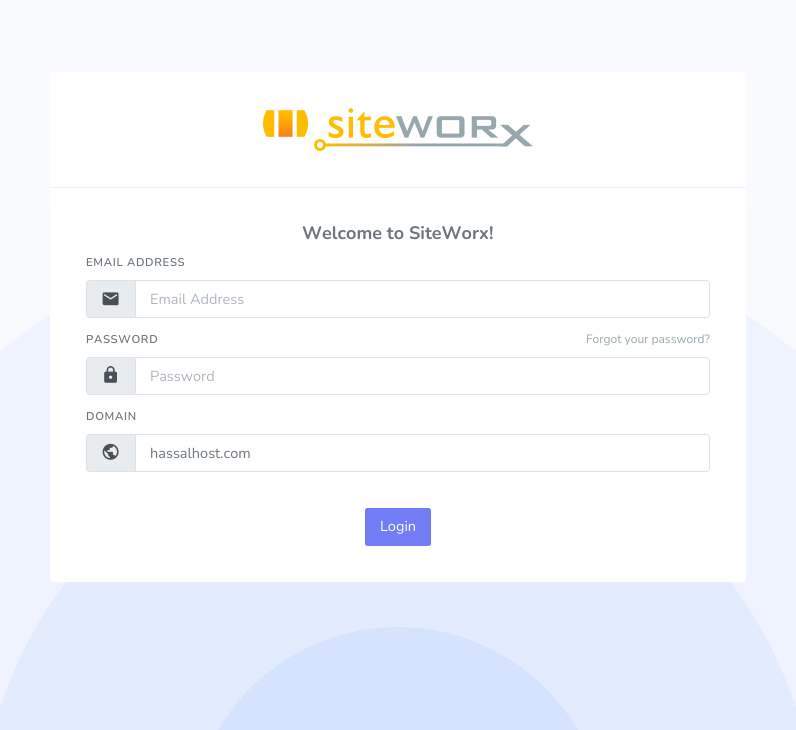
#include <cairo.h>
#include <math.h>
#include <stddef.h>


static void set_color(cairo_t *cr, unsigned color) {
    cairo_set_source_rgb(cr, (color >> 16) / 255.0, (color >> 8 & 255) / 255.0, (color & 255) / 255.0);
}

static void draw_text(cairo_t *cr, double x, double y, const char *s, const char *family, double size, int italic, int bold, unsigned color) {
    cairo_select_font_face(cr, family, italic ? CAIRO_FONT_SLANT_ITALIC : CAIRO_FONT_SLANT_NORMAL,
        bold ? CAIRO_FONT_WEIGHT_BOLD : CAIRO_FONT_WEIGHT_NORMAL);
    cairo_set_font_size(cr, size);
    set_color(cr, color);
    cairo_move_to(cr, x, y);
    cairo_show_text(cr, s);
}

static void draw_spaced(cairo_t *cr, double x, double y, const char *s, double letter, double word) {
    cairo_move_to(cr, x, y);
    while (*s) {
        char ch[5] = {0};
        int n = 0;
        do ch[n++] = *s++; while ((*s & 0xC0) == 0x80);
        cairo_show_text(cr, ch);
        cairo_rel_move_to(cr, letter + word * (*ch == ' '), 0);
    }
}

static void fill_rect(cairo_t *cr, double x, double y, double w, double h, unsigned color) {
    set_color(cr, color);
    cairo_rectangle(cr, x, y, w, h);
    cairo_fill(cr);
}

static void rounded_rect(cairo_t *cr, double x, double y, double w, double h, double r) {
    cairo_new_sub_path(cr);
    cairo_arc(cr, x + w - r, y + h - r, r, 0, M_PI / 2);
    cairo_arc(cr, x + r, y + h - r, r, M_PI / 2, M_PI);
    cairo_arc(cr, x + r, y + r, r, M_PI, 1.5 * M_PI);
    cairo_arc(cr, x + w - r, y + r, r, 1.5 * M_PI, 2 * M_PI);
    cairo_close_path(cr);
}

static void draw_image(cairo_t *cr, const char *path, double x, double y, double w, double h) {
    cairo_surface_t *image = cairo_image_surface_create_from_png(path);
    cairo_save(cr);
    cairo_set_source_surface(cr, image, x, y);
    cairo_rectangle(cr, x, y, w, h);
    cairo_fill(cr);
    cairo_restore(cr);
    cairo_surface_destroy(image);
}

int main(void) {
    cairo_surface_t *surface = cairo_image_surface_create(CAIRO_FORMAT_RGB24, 796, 730);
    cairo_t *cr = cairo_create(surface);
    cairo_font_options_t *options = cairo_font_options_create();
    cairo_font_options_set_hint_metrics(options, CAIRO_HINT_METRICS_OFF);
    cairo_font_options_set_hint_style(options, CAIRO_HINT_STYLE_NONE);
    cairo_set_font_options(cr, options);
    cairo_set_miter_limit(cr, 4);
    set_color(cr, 0xFAFBFE);
    cairo_paint(cr);
    draw_image(cr, "assets/img1.png", 0, 209, 796, 521);
    set_color(cr, 0xFFFFFF);
    rounded_rect(cr, 50, 72, 696, 510, 4);
    cairo_fill(cr);
    fill_rect(cr, 50, 187, 696, 1, 0xEEF2F7);
    draw_image(cr, "assets/img2.png", 263, 108, 270, 43);
    draw_text(cr, 302, 239, "Welcome to SiteWorx!", "Nunito", 18, 0, 1, 0x6C757D);
    cairo_select_font_face(cr, "Nunito SemiBold", CAIRO_FONT_SLANT_NORMAL, CAIRO_FONT_WEIGHT_NORMAL);
    cairo_set_font_size(cr, 11.25);
    draw_spaced(cr, 86, 266, "EMAIL ADDRESS", 0.7, 0);
    set_color(cr, 0xE9ECEF);
    cairo_new_path(cr);
    cairo_move_to(cr, 90, 280.5);
    cairo_line_to(cr, 135.5, 280.5);
    cairo_line_to(cr, 135.5, 317.5);
    cairo_line_to(cr, 90, 317.5);
    cairo_curve_to(cr, 88, 317.5, 86.5, 316, 86.5, 314);
    cairo_line_to(cr, 86.5, 284);
    cairo_curve_to(cr, 86.5, 282, 88, 280.5, 90, 280.5);
    cairo_close_path(cr);
    cairo_fill_preserve(cr);
    set_color(cr, 0xDEE2E6);
    cairo_set_line_width(cr, 1);
    cairo_stroke(cr);
    draw_image(cr, "assets/img3.png", 102, 292, 17, 14);
    cairo_new_path(cr);
    cairo_move_to(cr, 135.5, 280.5);
    cairo_line_to(cr, 706, 280.5);
    cairo_curve_to(cr, 708, 280.5, 709.5, 282, 709.5, 284);
    cairo_line_to(cr, 709.5, 314);
    cairo_curve_to(cr, 709.5, 316, 708, 317.5, 706, 317.5);
    cairo_line_to(cr, 135.5, 317.5);
    cairo_close_path(cr);
    cairo_stroke(cr);
    draw_text(cr, 150, 304, "Email Address", "Nunito", 14.5, 0, 0, 0xADB5BD);
    cairo_select_font_face(cr, "Nunito SemiBold", CAIRO_FONT_SLANT_NORMAL, CAIRO_FONT_WEIGHT_NORMAL);
    cairo_set_font_size(cr, 11.25);
    set_color(cr, 0x6C757D);
    draw_spaced(cr, 86, 343, "PASSWORD", 0.7, 0);
    draw_text(cr, 586, 343, "Forgot your password?", "Nunito", 12, 0, 0, 0x98A6AD);
    set_color(cr, 0xE9ECEF);
    cairo_new_path(cr);
    cairo_move_to(cr, 90, 357.5);
    cairo_line_to(cr, 135.5, 357.5);
    cairo_line_to(cr, 135.5, 394.5);
    cairo_line_to(cr, 90, 394.5);
    cairo_curve_to(cr, 88, 394.5, 86.5, 393, 86.5, 391);
    cairo_line_to(cr, 86.5, 361);
    cairo_curve_to(cr, 86.5, 359, 88, 357.5, 90, 357.5);
    cairo_close_path(cr);
    cairo_fill_preserve(cr);
    set_color(cr, 0xDEE2E6);
    cairo_stroke(cr);
    draw_image(cr, "assets/img4.png", 104, 366, 13, 17);
    cairo_new_path(cr);
    cairo_move_to(cr, 135.5, 357.5);
    cairo_line_to(cr, 706, 357.5);
    cairo_curve_to(cr, 708, 357.5, 709.5, 359, 709.5, 361);
    cairo_line_to(cr, 709.5, 391);
    cairo_curve_to(cr, 709.5, 393, 708, 394.5, 706, 394.5);
    cairo_line_to(cr, 135.5, 394.5);
    cairo_close_path(cr);
    cairo_stroke(cr);
    draw_text(cr, 150, 381, "Password", "Nunito", 14.5, 0, 0, 0xADB5BD);
    cairo_select_font_face(cr, "Nunito SemiBold", CAIRO_FONT_SLANT_NORMAL, CAIRO_FONT_WEIGHT_NORMAL);
    cairo_set_font_size(cr, 11.25);
    set_color(cr, 0x6C757D);
    draw_spaced(cr, 86, 420, "DOMAIN", 0.7, 0);
    set_color(cr, 0xE9ECEF);
    cairo_new_path(cr);
    cairo_move_to(cr, 90, 434.5);
    cairo_line_to(cr, 135.5, 434.5);
    cairo_line_to(cr, 135.5, 471.5);
    cairo_line_to(cr, 90, 471.5);
    cairo_curve_to(cr, 88, 471.5, 86.5, 470, 86.5, 468);
    cairo_line_to(cr, 86.5, 438);
    cairo_curve_to(cr, 86.5, 436, 88, 434.5, 90, 434.5);
    cairo_close_path(cr);
    cairo_fill_preserve(cr);
    set_color(cr, 0xDEE2E6);
    cairo_stroke(cr);
    draw_image(cr, "assets/img5.png", 102, 443, 17, 17);
    cairo_new_path(cr);
    cairo_move_to(cr, 135.5, 434.5);
    cairo_line_to(cr, 706, 434.5);
    cairo_curve_to(cr, 708, 434.5, 709.5, 436, 709.5, 438);
    cairo_line_to(cr, 709.5, 468);
    cairo_curve_to(cr, 709.5, 470, 708, 471.5, 706, 471.5);
    cairo_line_to(cr, 135.5, 471.5);
    cairo_close_path(cr);
    cairo_stroke(cr);
    draw_text(cr, 150, 458, "hassalhost.com", "Nunito", 14.5, 0, 0, 0x6C757D);
    set_color(cr, 0x727CF5);
    rounded_rect(cr, 365.5, 508.5, 65, 37, 2);
    cairo_fill_preserve(cr);
    cairo_stroke(cr);
    draw_text(cr, 380, 531, "Login", "Nunito", 14.5, 0, 0, 0xFFFFFF);
    cairo_surface_write_to_png(surface, "output.png");
    cairo_font_options_destroy(options);
    cairo_destroy(cr);
    cairo_surface_destroy(surface);
    return 0;
}
